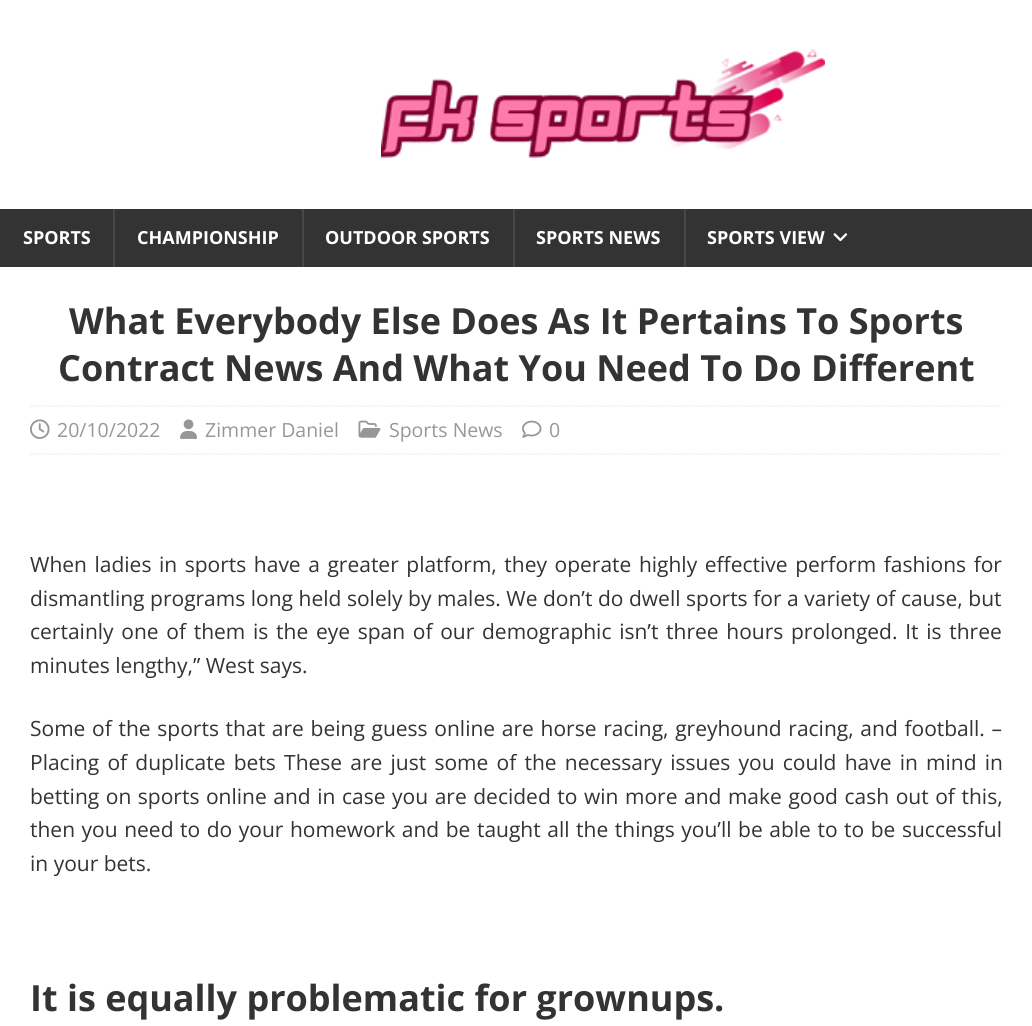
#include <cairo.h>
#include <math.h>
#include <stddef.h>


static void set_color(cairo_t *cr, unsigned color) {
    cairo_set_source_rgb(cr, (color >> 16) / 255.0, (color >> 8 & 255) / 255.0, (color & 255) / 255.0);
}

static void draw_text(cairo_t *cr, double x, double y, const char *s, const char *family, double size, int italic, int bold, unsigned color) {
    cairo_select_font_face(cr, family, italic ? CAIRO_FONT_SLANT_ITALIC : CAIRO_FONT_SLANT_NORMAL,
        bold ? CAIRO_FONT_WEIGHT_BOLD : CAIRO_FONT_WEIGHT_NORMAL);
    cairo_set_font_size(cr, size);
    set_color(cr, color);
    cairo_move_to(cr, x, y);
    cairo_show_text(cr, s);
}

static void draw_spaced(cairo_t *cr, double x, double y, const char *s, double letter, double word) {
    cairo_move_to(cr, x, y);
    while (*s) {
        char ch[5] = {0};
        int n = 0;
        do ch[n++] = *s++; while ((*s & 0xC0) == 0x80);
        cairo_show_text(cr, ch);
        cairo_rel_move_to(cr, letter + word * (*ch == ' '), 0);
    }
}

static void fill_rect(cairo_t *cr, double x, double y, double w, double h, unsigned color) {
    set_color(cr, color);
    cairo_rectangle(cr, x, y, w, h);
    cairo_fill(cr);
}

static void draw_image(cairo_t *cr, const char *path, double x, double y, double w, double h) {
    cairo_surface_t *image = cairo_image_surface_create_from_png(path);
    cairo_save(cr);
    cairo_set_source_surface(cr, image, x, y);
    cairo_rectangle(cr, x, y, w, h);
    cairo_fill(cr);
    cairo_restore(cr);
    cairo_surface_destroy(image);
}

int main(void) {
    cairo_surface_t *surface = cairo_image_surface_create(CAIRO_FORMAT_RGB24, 1032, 1026);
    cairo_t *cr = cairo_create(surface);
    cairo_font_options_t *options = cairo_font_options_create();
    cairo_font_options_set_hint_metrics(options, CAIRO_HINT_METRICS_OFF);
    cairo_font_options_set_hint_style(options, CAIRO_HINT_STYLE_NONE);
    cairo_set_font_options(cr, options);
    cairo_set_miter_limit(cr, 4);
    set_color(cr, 0xFFFFFF);
    cairo_paint(cr);
    draw_image(cr, "assets/img1.png", 381, 49, 444, 109);
    fill_rect(cr, 0, 209, 1032, 58, 0x333333);
    draw_text(cr, 23, 244, "SPORTS", "Open Sans", 18, 0, 1, 0xFFFFFF);
    fill_rect(cr, 113, 209, 2, 58, 0x474747);
    draw_text(cr, 137, 244, "CHAMPIONSHIP", "Open Sans", 18, 0, 1, 0xFFFFFF);
    fill_rect(cr, 302, 209, 2, 58, 0x474747);
    draw_text(cr, 325, 244, "OUTDOOR SPORTS", "Open Sans", 18, 0, 1, 0xFFFFFF);
    fill_rect(cr, 513, 209, 2, 58, 0x474747);
    draw_text(cr, 536, 244, "SPORTS NEWS", "Open Sans", 18, 0, 1, 0xFFFFFF);
    fill_rect(cr, 684, 209, 2, 58, 0x474747);
    draw_text(cr, 707, 244, "SPORTS VIEW", "Open Sans", 18, 0, 1, 0xFFFFFF);
    draw_image(cr, "assets/img2.png", 833, 233, 15, 9);
    draw_text(cr, 69, 334, "What Everybody Else Does As It Pertains To Sports", "Open Sans", 36, 0, 1, 0x333333);
    draw_text(cr, 58, 381, "Contract News And What You Need To Do Different", "Open Sans", 36, 0, 1, 0x333333);
    cairo_new_path(cr);
    cairo_move_to(cr, 30, 406);
    cairo_line_to(cr, 1002, 406);
    set_color(cr, 0xEBEBEB);
    cairo_set_line_width(cr, 1.5);
    cairo_set_dash(cr, (double[]){1.5, 1.5}, 2, 0);
    cairo_stroke(cr);
    cairo_new_path(cr);
    cairo_move_to(cr, 30, 454);
    cairo_line_to(cr, 1002, 454);
    cairo_stroke(cr);
    draw_image(cr, "assets/img3.png", 30, 419, 20, 20);
    draw_text(cr, 57, 437, "20/10/2022", "Open Sans", 19.5, 0, 0, 0x979797);
    draw_image(cr, "assets/img4.png", 180, 419, 17, 20);
    draw_text(cr, 205, 437, "Zimmer Daniel", "Open Sans", 19.5, 0, 0, 0x979797);
    draw_image(cr, "assets/img5.png", 358, 420, 23, 18);
    draw_text(cr, 389, 437, "Sports News", "Open Sans", 19.5, 0, 0, 0x979797);
    draw_image(cr, "assets/img6.png", 522, 420, 20, 18);
    draw_text(cr, 549, 437, "0", "Open Sans", 19.5, 0, 0, 0x979797);
    cairo_set_font_size(cr, 21);
    set_color(cr, 0x333333);
    draw_spaced(cr, 30, 572, "When ladies in sports have a greater platform, they operate highly effective perform fashions for", 0, 2.1);
    draw_spaced(cr, 30, 606, "dismantling programs long held solely by males. We don’t do dwell sports for a variety of cause, but", 0, 0.1);
    draw_spaced(cr, 30, 639, "certainly one of them is the eye span of our demographic isn’t three hours prolonged. It is three", 0, 2.25);
    draw_text(cr, 30, 673, "minutes lengthy,” West says.", "Open Sans", 21, 0, 0, 0x333333);
    draw_spaced(cr, 30, 736, "Some of the sports that are being guess online are horse racing, greyhound racing, and football. –", 0, 1.25);
    draw_spaced(cr, 30, 770, "Placing of duplicate bets These are just some of the necessary issues you could have in mind in", 0, 2.75);
    draw_spaced(cr, 30, 804, "betting on sports online and in case you are decided to win more and make good cash out of this,", 0, 1.1);
    draw_spaced(cr, 30, 837, "then you need to do your homework and be taught all the things you’ll be able to to be successful", 0, 1.1);
    draw_text(cr, 30, 871, "in your bets.", "Open Sans", 21, 0, 0, 0x333333);
    draw_text(cr, 30, 1011, "It is equally problematic for grownups.", "Open Sans", 36, 0, 1, 0x333333);
    cairo_surface_write_to_png(surface, "output.png");
    cairo_font_options_destroy(options);
    cairo_destroy(cr);
    cairo_surface_destroy(surface);
    return 0;
}
